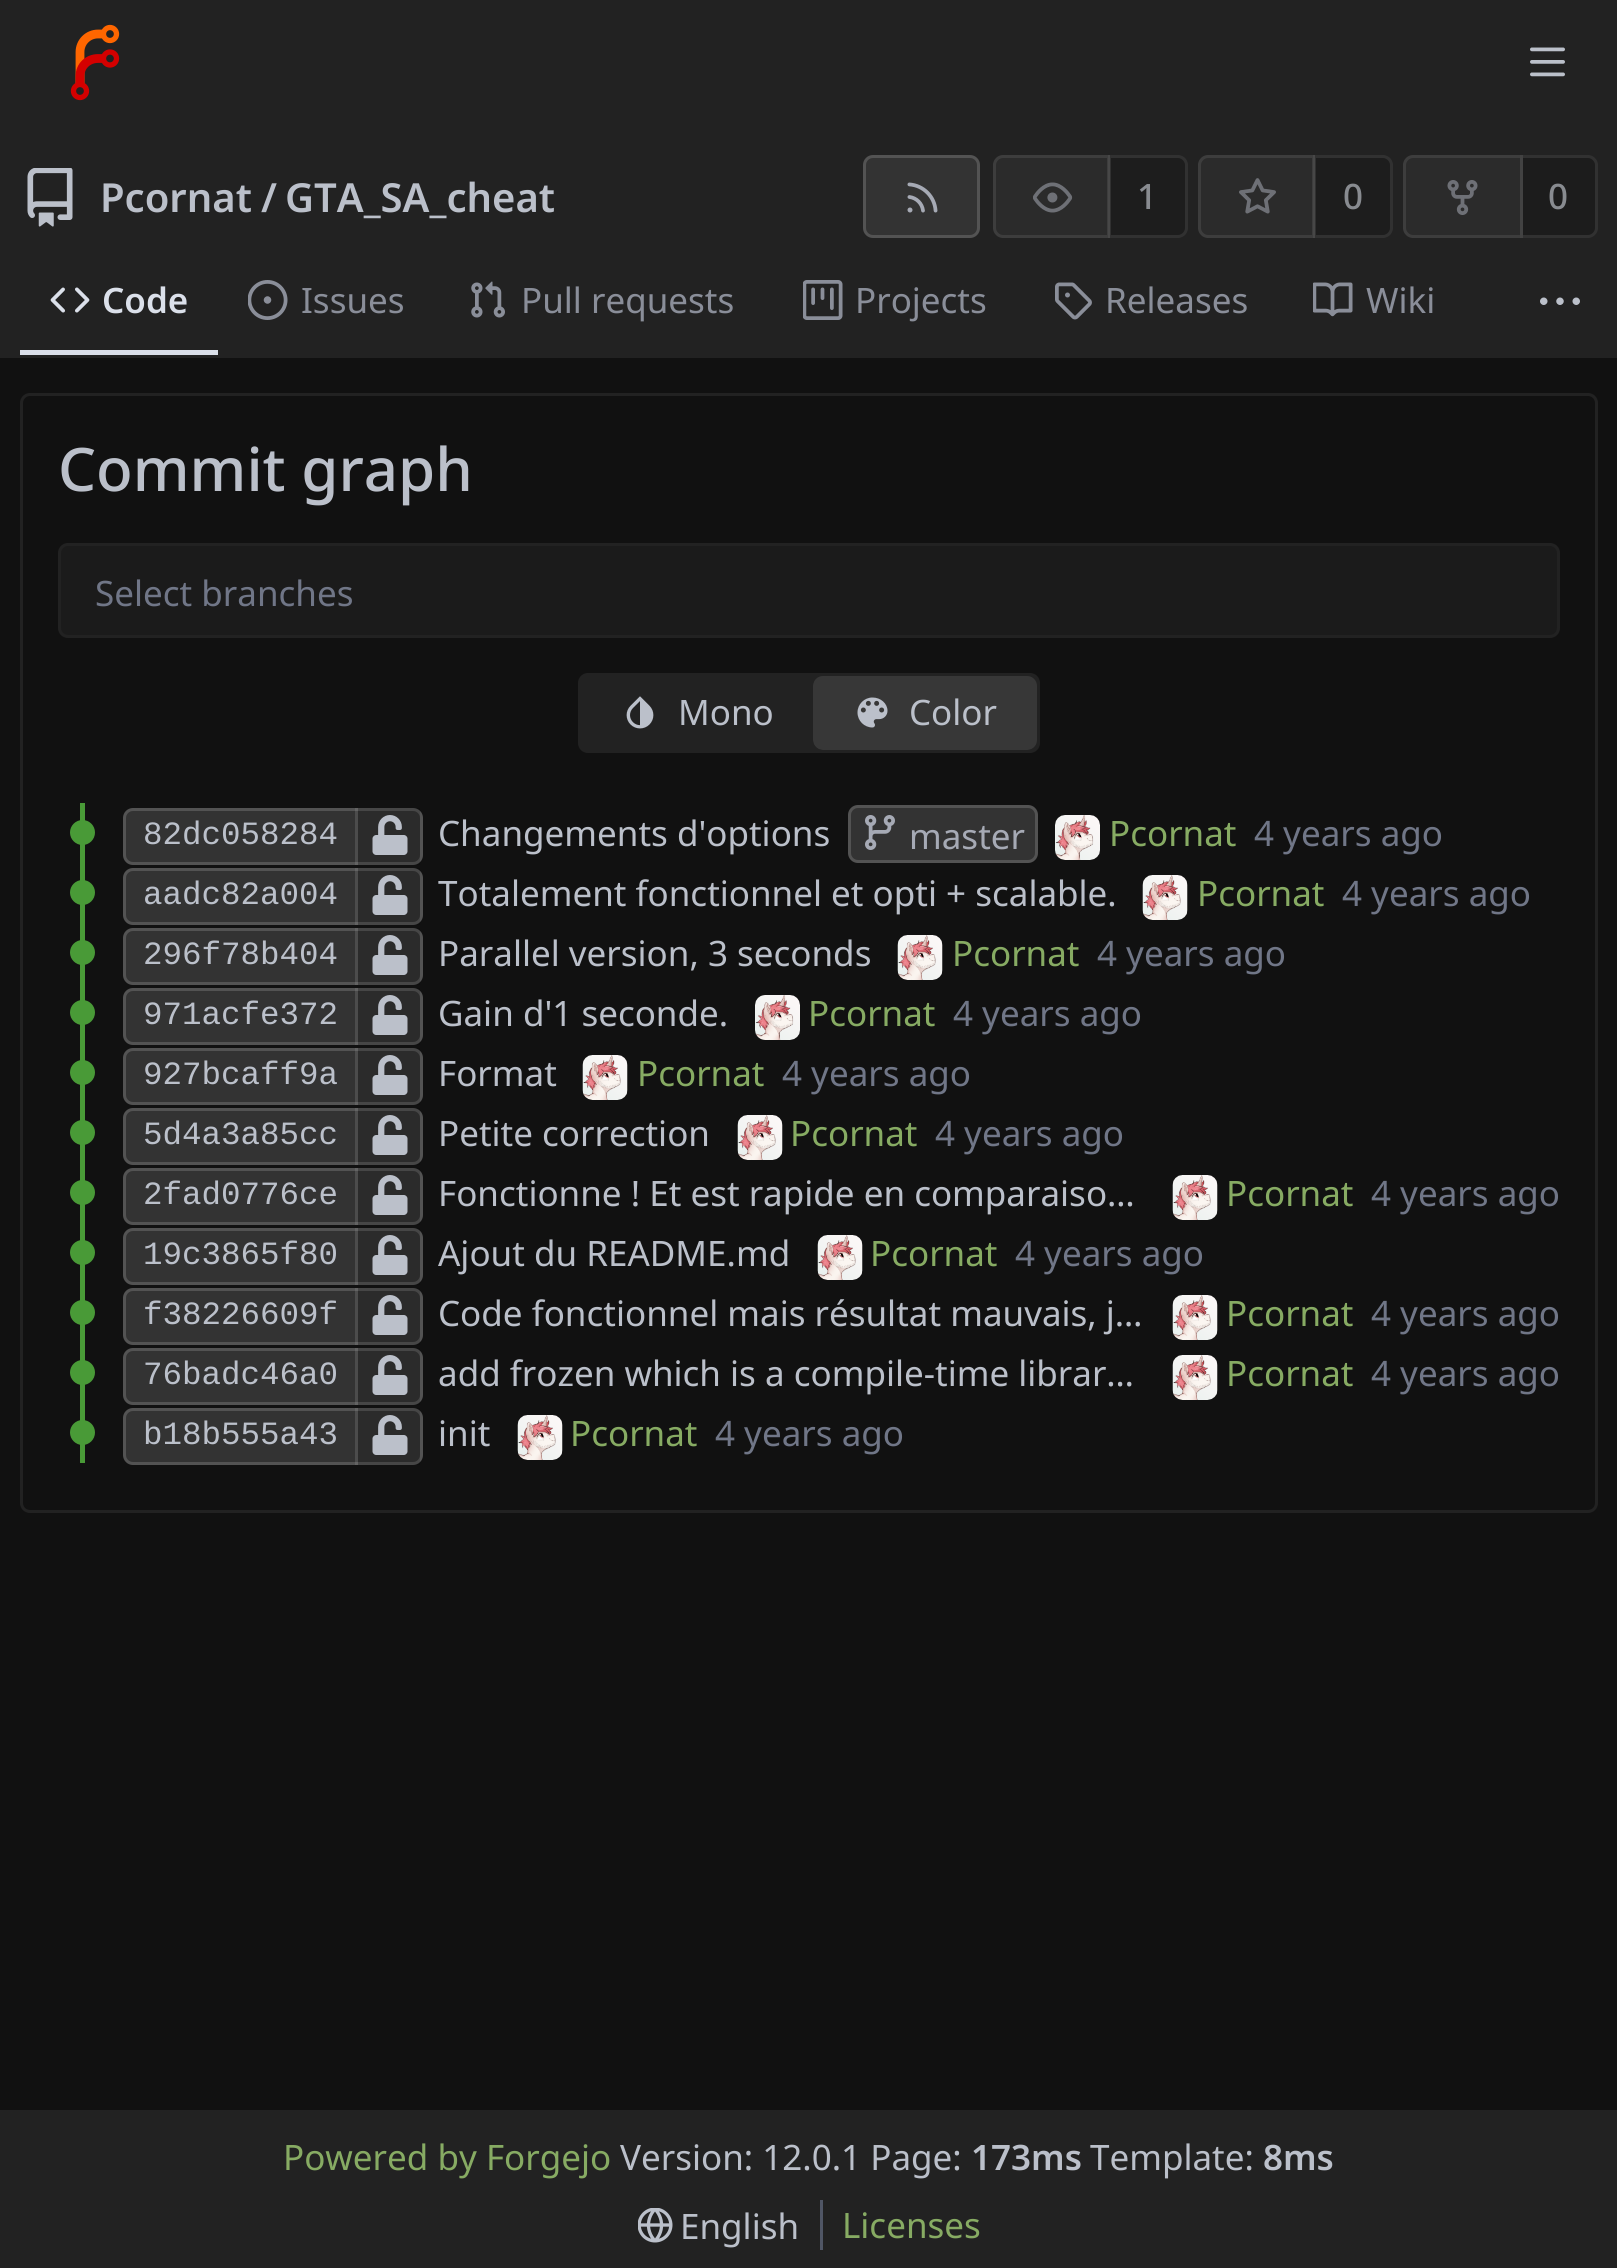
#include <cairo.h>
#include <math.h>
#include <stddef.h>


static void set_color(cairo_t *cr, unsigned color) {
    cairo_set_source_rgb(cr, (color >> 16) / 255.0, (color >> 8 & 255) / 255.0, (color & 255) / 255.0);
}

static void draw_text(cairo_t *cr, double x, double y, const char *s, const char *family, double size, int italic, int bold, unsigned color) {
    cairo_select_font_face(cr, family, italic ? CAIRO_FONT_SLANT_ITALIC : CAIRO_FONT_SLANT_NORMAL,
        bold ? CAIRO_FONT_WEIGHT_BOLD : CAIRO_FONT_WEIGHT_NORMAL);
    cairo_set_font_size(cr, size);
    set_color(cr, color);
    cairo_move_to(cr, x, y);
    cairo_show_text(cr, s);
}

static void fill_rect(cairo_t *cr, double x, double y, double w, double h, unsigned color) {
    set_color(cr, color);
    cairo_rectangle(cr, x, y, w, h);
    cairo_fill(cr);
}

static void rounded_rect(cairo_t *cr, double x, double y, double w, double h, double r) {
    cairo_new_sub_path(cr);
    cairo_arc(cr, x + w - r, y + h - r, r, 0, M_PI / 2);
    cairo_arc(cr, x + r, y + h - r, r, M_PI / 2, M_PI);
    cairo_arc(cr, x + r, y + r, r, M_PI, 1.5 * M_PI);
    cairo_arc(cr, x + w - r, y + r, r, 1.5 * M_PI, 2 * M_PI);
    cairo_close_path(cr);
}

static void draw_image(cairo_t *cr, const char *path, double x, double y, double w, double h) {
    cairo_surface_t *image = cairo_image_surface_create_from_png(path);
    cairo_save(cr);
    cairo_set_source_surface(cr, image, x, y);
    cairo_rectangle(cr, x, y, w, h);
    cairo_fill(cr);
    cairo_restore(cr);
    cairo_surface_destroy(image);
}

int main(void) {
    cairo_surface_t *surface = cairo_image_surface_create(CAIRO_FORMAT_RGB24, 1617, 2268);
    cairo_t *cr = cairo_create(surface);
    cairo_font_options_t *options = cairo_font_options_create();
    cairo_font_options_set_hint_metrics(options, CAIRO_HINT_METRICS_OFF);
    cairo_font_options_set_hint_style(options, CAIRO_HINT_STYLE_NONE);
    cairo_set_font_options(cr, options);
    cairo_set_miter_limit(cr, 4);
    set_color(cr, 0x111111);
    cairo_paint(cr);
    fill_rect(cr, 0, 0, 1617, 358, 0x222222);
    cairo_new_path(cr);
    cairo_move_to(cr, 80, 86.5);
    cairo_line_to(cr, 80, 52);
    cairo_curve_to(cr, 80, 42, 88, 34, 98, 34);
    cairo_line_to(cr, 105, 34);
    set_color(cr, 0xFF6600);
    cairo_set_line_width(cr, 8.8);
    cairo_stroke(cr);
    cairo_new_path(cr);
    cairo_move_to(cr, 80, 86.5);
    cairo_line_to(cr, 80, 76);
    cairo_curve_to(cr, 80, 66, 88, 58.5, 98, 58.5);
    cairo_line_to(cr, 105, 58.5);
    set_color(cr, 0xD40000);
    cairo_stroke(cr);
    cairo_arc(cr, 110, 34, 6.5, 0, 2 * M_PI);
    set_color(cr, 0xFF6600);
    cairo_set_line_width(cr, 5.3);
    cairo_stroke(cr);
    cairo_arc(cr, 110, 58.5, 6.5, 0, 2 * M_PI);
    set_color(cr, 0xD40000);
    cairo_stroke(cr);
    cairo_arc(cr, 80, 91, 6.5, 0, 2 * M_PI);
    cairo_stroke(cr);
    draw_image(cr, "assets/img1.png", 1530, 47, 35, 30);
    draw_image(cr, "assets/img2.png", 27, 168, 46, 59);
    draw_text(cr, 100, 212, "Pcornat", "Noto Sans SemiBold", 40, 0, 0, 0xBBC0CA);
    draw_text(cr, 261, 212, "/", "Noto Sans SemiBold", 40, 0, 0, 0xBBC0CA);
    draw_text(cr, 285, 212, "GTA_SA_cheat", "Noto Sans SemiBold", 40, 0, 0, 0xBBC0CA);
    set_color(cr, 0x333333);
    rounded_rect(cr, 863, 155, 117, 83, 10);
    cairo_fill(cr);
    rounded_rect(cr, 864.5, 156.5, 114, 80, 8.5);
    cairo_set_source_rgba(cr, 1, 1, 1, 0.16);
    cairo_set_line_width(cr, 3);
    cairo_stroke(cr);
    draw_image(cr, "assets/img3.png", 907, 182, 31, 31);
    set_color(cr, 0x2B2B2B);
    cairo_new_path(cr);
    cairo_move_to(cr, 1003, 155);
    cairo_line_to(cr, 1110, 155);
    cairo_line_to(cr, 1110, 238);
    cairo_line_to(cr, 1003, 238);
    cairo_curve_to(cr, 997.5, 238, 993, 233.5, 993, 228);
    cairo_line_to(cr, 993, 165);
    cairo_curve_to(cr, 993, 159.5, 997.5, 155, 1003, 155);
    cairo_close_path(cr);
    cairo_fill(cr);
    cairo_new_path(cr);
    cairo_move_to(cr, 1003, 156.5);
    cairo_line_to(cr, 1108.5, 156.5);
    cairo_line_to(cr, 1108.5, 236.5);
    cairo_line_to(cr, 1003, 236.5);
    cairo_curve_to(cr, 998.5, 236.5, 994.5, 232.5, 994.5, 228);
    cairo_line_to(cr, 994.5, 165);
    cairo_curve_to(cr, 994.5, 160.5, 998.5, 156.5, 1003, 156.5);
    cairo_close_path(cr);
    cairo_set_source_rgba(cr, 0.612, 0.612, 0.612, 0.16);
    cairo_stroke(cr);
    draw_image(cr, "assets/img4.png", 1033, 182, 40, 31);
    cairo_set_source_rgba(cr, 0, 0, 0, 0.14);
    cairo_new_path(cr);
    cairo_move_to(cr, 1108, 155);
    cairo_line_to(cr, 1178, 155);
    cairo_curve_to(cr, 1183.5, 155, 1188, 159.5, 1188, 165);
    cairo_line_to(cr, 1188, 228);
    cairo_curve_to(cr, 1188, 233.5, 1183.5, 238, 1178, 238);
    cairo_line_to(cr, 1108, 238);
    cairo_close_path(cr);
    cairo_fill(cr);
    cairo_new_path(cr);
    cairo_move_to(cr, 1109.5, 156.5);
    cairo_line_to(cr, 1178, 156.5);
    cairo_curve_to(cr, 1182.5, 156.5, 1186.5, 160.5, 1186.5, 165);
    cairo_line_to(cr, 1186.5, 228);
    cairo_curve_to(cr, 1186.5, 232.5, 1182.5, 236.5, 1178, 236.5);
    cairo_line_to(cr, 1109.5, 236.5);
    cairo_close_path(cr);
    cairo_set_source_rgba(cr, 1, 1, 1, 0.09);
    cairo_stroke(cr);
    draw_text(cr, 1137, 209, "1", "Noto Sans Medium", 35, 0, 0, 0x888B90);
    set_color(cr, 0x2B2B2B);
    cairo_new_path(cr);
    cairo_move_to(cr, 1208, 155);
    cairo_line_to(cr, 1315, 155);
    cairo_line_to(cr, 1315, 238);
    cairo_line_to(cr, 1208, 238);
    cairo_curve_to(cr, 1202.5, 238, 1198, 233.5, 1198, 228);
    cairo_line_to(cr, 1198, 165);
    cairo_curve_to(cr, 1198, 159.5, 1202.5, 155, 1208, 155);
    cairo_close_path(cr);
    cairo_fill(cr);
    cairo_new_path(cr);
    cairo_move_to(cr, 1208, 156.5);
    cairo_line_to(cr, 1313.5, 156.5);
    cairo_line_to(cr, 1313.5, 236.5);
    cairo_line_to(cr, 1208, 236.5);
    cairo_curve_to(cr, 1203.5, 236.5, 1199.5, 232.5, 1199.5, 228);
    cairo_line_to(cr, 1199.5, 165);
    cairo_curve_to(cr, 1199.5, 160.5, 1203.5, 156.5, 1208, 156.5);
    cairo_close_path(cr);
    cairo_set_source_rgba(cr, 0.612, 0.612, 0.612, 0.16);
    cairo_stroke(cr);
    draw_image(cr, "assets/img5.png", 1239, 178, 37, 36);
    cairo_set_source_rgba(cr, 0, 0, 0, 0.14);
    cairo_new_path(cr);
    cairo_move_to(cr, 1313, 155);
    cairo_line_to(cr, 1383, 155);
    cairo_curve_to(cr, 1388.5, 155, 1393, 159.5, 1393, 165);
    cairo_line_to(cr, 1393, 228);
    cairo_curve_to(cr, 1393, 233.5, 1388.5, 238, 1383, 238);
    cairo_line_to(cr, 1313, 238);
    cairo_close_path(cr);
    cairo_fill(cr);
    cairo_new_path(cr);
    cairo_move_to(cr, 1314.5, 156.5);
    cairo_line_to(cr, 1383, 156.5);
    cairo_curve_to(cr, 1387.5, 156.5, 1391.5, 160.5, 1391.5, 165);
    cairo_line_to(cr, 1391.5, 228);
    cairo_curve_to(cr, 1391.5, 232.5, 1387.5, 236.5, 1383, 236.5);
    cairo_line_to(cr, 1314.5, 236.5);
    cairo_close_path(cr);
    cairo_set_source_rgba(cr, 1, 1, 1, 0.09);
    cairo_stroke(cr);
    draw_text(cr, 1343, 209, "0", "Noto Sans Medium", 35, 0, 0, 0x888B90);
    set_color(cr, 0x2B2B2B);
    cairo_new_path(cr);
    cairo_move_to(cr, 1413, 155);
    cairo_line_to(cr, 1523, 155);
    cairo_line_to(cr, 1523, 238);
    cairo_line_to(cr, 1413, 238);
    cairo_curve_to(cr, 1407.5, 238, 1403, 233.5, 1403, 228);
    cairo_line_to(cr, 1403, 165);
    cairo_curve_to(cr, 1403, 159.5, 1407.5, 155, 1413, 155);
    cairo_close_path(cr);
    cairo_fill(cr);
    cairo_new_path(cr);
    cairo_move_to(cr, 1413, 156.5);
    cairo_line_to(cr, 1521.5, 156.5);
    cairo_line_to(cr, 1521.5, 236.5);
    cairo_line_to(cr, 1413, 236.5);
    cairo_curve_to(cr, 1408.5, 236.5, 1404.5, 232.5, 1404.5, 228);
    cairo_line_to(cr, 1404.5, 165);
    cairo_curve_to(cr, 1404.5, 160.5, 1408.5, 156.5, 1413, 156.5);
    cairo_close_path(cr);
    cairo_set_source_rgba(cr, 0.612, 0.612, 0.612, 0.16);
    cairo_stroke(cr);
    draw_image(cr, "assets/img6.png", 1447, 180, 31, 35);
    cairo_set_source_rgba(cr, 0.059, 0.059, 0.059, 0.25);
    cairo_new_path(cr);
    cairo_move_to(cr, 1520, 155);
    cairo_line_to(cr, 1588, 155);
    cairo_curve_to(cr, 1593.5, 155, 1598, 159.5, 1598, 165);
    cairo_line_to(cr, 1598, 228);
    cairo_curve_to(cr, 1598, 233.5, 1593.5, 238, 1588, 238);
    cairo_line_to(cr, 1520, 238);
    cairo_close_path(cr);
    cairo_fill(cr);
    cairo_new_path(cr);
    cairo_move_to(cr, 1521.5, 156.5);
    cairo_line_to(cr, 1588, 156.5);
    cairo_curve_to(cr, 1592.5, 156.5, 1596.5, 160.5, 1596.5, 165);
    cairo_line_to(cr, 1596.5, 228);
    cairo_curve_to(cr, 1596.5, 232.5, 1592.5, 236.5, 1588, 236.5);
    cairo_line_to(cr, 1521.5, 236.5);
    cairo_close_path(cr);
    cairo_set_source_rgba(cr, 0.612, 0.612, 0.612, 0.16);
    cairo_stroke(cr);
    draw_text(cr, 1548, 209, "0", "Noto Sans Medium", 35, 0, 0, 0x888B90);
    fill_rect(cr, 20, 350, 198, 5, 0xDBE0EA);
    draw_image(cr, "assets/img7.png", 50, 287, 40, 26);
    draw_text(cr, 102, 313, "Code", "Noto Sans SemiBold", 35, 0, 0, 0xDBE0EA);
    draw_image(cr, "assets/img8.png", 248, 280, 40, 40);
    draw_text(cr, 301, 313, "Issues", "Noto Sans", 35, 0, 0, 0x8A8E99);
    draw_image(cr, "assets/img9.png", 471, 281, 34, 37);
    draw_text(cr, 521, 313, "Pull requests", "Noto Sans", 35, 0, 0, 0x8A8E99);
    draw_image(cr, "assets/img10.png", 803, 280, 40, 40);
    draw_text(cr, 855, 313, "Projects", "Noto Sans", 35, 0, 0, 0x8A8E99);
    draw_image(cr, "assets/img11.png", 1055, 282, 37, 38);
    draw_text(cr, 1105, 313, "Releases", "Noto Sans", 35, 0, 0, 0x8A8E99);
    draw_image(cr, "assets/img12.png", 1313, 282, 40, 35);
    draw_text(cr, 1366, 313, "Wiki", "Noto Sans", 35, 0, 0, 0x8A8E99);
    draw_image(cr, "assets/img13.png", 1540, 297, 40, 8);
    rounded_rect(cr, 21.5, 394.5, 1575, 1117, 8.5);
    set_color(cr, 0x222222);
    cairo_stroke(cr);
    draw_text(cr, 58, 491, "Commit graph", "Noto Sans Medium", 60, 0, 0, 0xBBC0CA);
    set_color(cr, 0x1B1B1B);
    rounded_rect(cr, 59.5, 544.5, 1499, 92, 8.5);
    cairo_fill_preserve(cr);
    set_color(cr, 0x222222);
    cairo_stroke(cr);
    draw_text(cr, 95, 606, "Select branches", "Noto Sans", 35, 0, 0, 0x707687);
    set_color(cr, 0x222222);
    rounded_rect(cr, 579.5, 674.5, 459, 77, 8.5);
    cairo_fill_preserve(cr);
    cairo_stroke(cr);
    draw_image(cr, "assets/img14.png", 626, 696, 28, 33);
    draw_text(cr, 678, 725, "Mono", "Noto Sans", 35, 0, 0, 0xBBC0CA);
    set_color(cr, 0x373737);
    rounded_rect(cr, 813, 675, 225, 75, 10);
    cairo_fill(cr);
    rounded_rect(cr, 811.5, 674.5, 227, 77, 11.5);
    set_color(cr, 0x222222);
    cairo_stroke(cr);
    draw_image(cr, "assets/img15.png", 857, 697, 31, 31);
    draw_text(cr, 909, 725, "Color", "Noto Sans", 35, 0, 0, 0xBBC0CA);
    draw_image(cr, "assets/img16.png", 70, 803, 25, 660);
    set_color(cr, 0x333333);
    rounded_rect(cr, 123, 808, 300, 57, 10);
    cairo_fill(cr);
    rounded_rect(cr, 124.5, 809.5, 297, 54, 8.5);
    cairo_set_source_rgba(cr, 1, 1, 1, 0.16);
    cairo_stroke(cr);
    draw_text(cr, 143, 844, "82dc058284", "Liberation Mono", 32.5, 0, 0, 0xBBC0CA);
    cairo_set_source_rgba(cr, 0, 0, 0, 0.16);
    cairo_rectangle(cr, 355, 808, 65, 57);
    cairo_fill(cr);
    cairo_set_source_rgba(cr, 1, 1, 1, 0.16);
    cairo_rectangle(cr, 355, 808, 3, 57);
    cairo_fill(cr);
    draw_image(cr, "assets/img17.png", 372, 815, 36, 40);
    draw_text(cr, 438, 846, "Changements d'options", "Noto Sans", 35, 0, 0, 0xBBC0CA);
    set_color(cr, 0x333333);
    rounded_rect(cr, 848, 805, 190, 58, 10);
    cairo_fill(cr);
    rounded_rect(cr, 849.5, 806.5, 187, 55, 8.5);
    cairo_set_source_rgba(cr, 1, 1, 1, 0.16);
    cairo_stroke(cr);
    draw_image(cr, "assets/img18.png", 865, 815, 30, 35);
    draw_text(cr, 909, 849, "master", "Noto Sans", 35, 0, 0, 0xA6AAB5);
    draw_image(cr, "assets/img19.png", 1055, 815, 45, 45);
    draw_text(cr, 1109, 846, "Pcornat", "Noto Sans", 35, 0, 0, 0x87AB63);
    draw_text(cr, 1254, 846, "4 years ago", "Noto Sans", 35, 0, 0, 0x707687);
    set_color(cr, 0x333333);
    rounded_rect(cr, 123, 868, 300, 57, 10);
    cairo_fill(cr);
    rounded_rect(cr, 124.5, 869.5, 297, 54, 8.5);
    cairo_set_source_rgba(cr, 1, 1, 1, 0.16);
    cairo_stroke(cr);
    draw_text(cr, 143, 904, "aadc82a004", "Liberation Mono", 32.5, 0, 0, 0xBBC0CA);
    cairo_set_source_rgba(cr, 0, 0, 0, 0.16);
    cairo_rectangle(cr, 355, 868, 65, 57);
    cairo_fill(cr);
    cairo_set_source_rgba(cr, 1, 1, 1, 0.16);
    cairo_rectangle(cr, 355, 868, 3, 57);
    cairo_fill(cr);
    draw_image(cr, "assets/img17.png", 372, 875, 36, 40);
    draw_text(cr, 438, 906, "Totalement fonctionnel et opti + scalable.", "Noto Sans", 35, 0, 0, 0xBBC0CA);
    draw_image(cr, "assets/img20.png", 1142, 875, 46, 45);
    draw_text(cr, 1197, 906, "Pcornat", "Noto Sans", 35, 0, 0, 0x87AB63);
    draw_text(cr, 1342, 906, "4 years ago", "Noto Sans", 35, 0, 0, 0x707687);
    set_color(cr, 0x333333);
    rounded_rect(cr, 123, 928, 300, 57, 10);
    cairo_fill(cr);
    rounded_rect(cr, 124.5, 929.5, 297, 54, 8.5);
    cairo_set_source_rgba(cr, 1, 1, 1, 0.16);
    cairo_stroke(cr);
    draw_text(cr, 143, 964, "296f78b404", "Liberation Mono", 32.5, 0, 0, 0xBBC0CA);
    cairo_set_source_rgba(cr, 0, 0, 0, 0.16);
    cairo_rectangle(cr, 355, 928, 65, 57);
    cairo_fill(cr);
    cairo_set_source_rgba(cr, 1, 1, 1, 0.16);
    cairo_rectangle(cr, 355, 928, 3, 57);
    cairo_fill(cr);
    draw_image(cr, "assets/img17.png", 372, 935, 36, 40);
    draw_text(cr, 438, 966, "Parallel version, 3 seconds", "Noto Sans", 35, 0, 0, 0xBBC0CA);
    draw_image(cr, "assets/img21.png", 897, 935, 46, 45);
    draw_text(cr, 952, 966, "Pcornat", "Noto Sans", 35, 0, 0, 0x87AB63);
    draw_text(cr, 1097, 966, "4 years ago", "Noto Sans", 35, 0, 0, 0x707687);
    set_color(cr, 0x333333);
    rounded_rect(cr, 123, 988, 300, 57, 10);
    cairo_fill(cr);
    rounded_rect(cr, 124.5, 989.5, 297, 54, 8.5);
    cairo_set_source_rgba(cr, 1, 1, 1, 0.16);
    cairo_stroke(cr);
    draw_text(cr, 143, 1024, "971acfe372", "Liberation Mono", 32.5, 0, 0, 0xBBC0CA);
    cairo_set_source_rgba(cr, 0, 0, 0, 0.16);
    cairo_rectangle(cr, 355, 988, 65, 57);
    cairo_fill(cr);
    cairo_set_source_rgba(cr, 1, 1, 1, 0.16);
    cairo_rectangle(cr, 355, 988, 3, 57);
    cairo_fill(cr);
    draw_image(cr, "assets/img17.png", 372, 995, 36, 40);
    draw_text(cr, 438, 1026, "Gain d'1 seconde.", "Noto Sans", 35, 0, 0, 0xBBC0CA);
    draw_image(cr, "assets/img22.png", 755, 995, 45, 45);
    draw_text(cr, 808, 1026, "Pcornat", "Noto Sans", 35, 0, 0, 0x87AB63);
    draw_text(cr, 953, 1026, "4 years ago", "Noto Sans", 35, 0, 0, 0x707687);
    set_color(cr, 0x333333);
    rounded_rect(cr, 123, 1048, 300, 57, 10);
    cairo_fill(cr);
    rounded_rect(cr, 124.5, 1049.5, 297, 54, 8.5);
    cairo_set_source_rgba(cr, 1, 1, 1, 0.16);
    cairo_stroke(cr);
    draw_text(cr, 143, 1084, "927bcaff9a", "Liberation Mono", 32.5, 0, 0, 0xBBC0CA);
    cairo_set_source_rgba(cr, 0, 0, 0, 0.16);
    cairo_rectangle(cr, 355, 1048, 65, 57);
    cairo_fill(cr);
    cairo_set_source_rgba(cr, 1, 1, 1, 0.16);
    cairo_rectangle(cr, 355, 1048, 3, 57);
    cairo_fill(cr);
    draw_image(cr, "assets/img17.png", 372, 1055, 36, 40);
    draw_text(cr, 438, 1086, "Format", "Noto Sans", 35, 0, 0, 0xBBC0CA);
    draw_image(cr, "assets/img23.png", 582, 1055, 46, 45);
    draw_text(cr, 637, 1086, "Pcornat", "Noto Sans", 35, 0, 0, 0x87AB63);
    draw_text(cr, 782, 1086, "4 years ago", "Noto Sans", 35, 0, 0, 0x707687);
    set_color(cr, 0x333333);
    rounded_rect(cr, 123, 1108, 300, 57, 10);
    cairo_fill(cr);
    rounded_rect(cr, 124.5, 1109.5, 297, 54, 8.5);
    cairo_set_source_rgba(cr, 1, 1, 1, 0.16);
    cairo_stroke(cr);
    draw_text(cr, 143, 1144, "5d4a3a85cc", "Liberation Mono", 32.5, 0, 0, 0xBBC0CA);
    cairo_set_source_rgba(cr, 0, 0, 0, 0.16);
    cairo_rectangle(cr, 355, 1108, 65, 57);
    cairo_fill(cr);
    cairo_set_source_rgba(cr, 1, 1, 1, 0.16);
    cairo_rectangle(cr, 355, 1108, 3, 57);
    cairo_fill(cr);
    draw_image(cr, "assets/img17.png", 372, 1115, 36, 40);
    draw_text(cr, 438, 1146, "Petite correction", "Noto Sans", 35, 0, 0, 0xBBC0CA);
    draw_image(cr, "assets/img21.png", 737, 1115, 46, 45);
    draw_text(cr, 790, 1146, "Pcornat", "Noto Sans", 35, 0, 0, 0x87AB63);
    draw_text(cr, 935, 1146, "4 years ago", "Noto Sans", 35, 0, 0, 0x707687);
    set_color(cr, 0x333333);
    rounded_rect(cr, 123, 1168, 300, 57, 10);
    cairo_fill(cr);
    rounded_rect(cr, 124.5, 1169.5, 297, 54, 8.5);
    cairo_set_source_rgba(cr, 1, 1, 1, 0.16);
    cairo_stroke(cr);
    draw_text(cr, 143, 1204, "2fad0776ce", "Liberation Mono", 32.5, 0, 0, 0xBBC0CA);
    cairo_set_source_rgba(cr, 0, 0, 0, 0.16);
    cairo_rectangle(cr, 355, 1168, 65, 57);
    cairo_fill(cr);
    cairo_set_source_rgba(cr, 1, 1, 1, 0.16);
    cairo_rectangle(cr, 355, 1168, 3, 57);
    cairo_fill(cr);
    draw_image(cr, "assets/img17.png", 372, 1175, 36, 40);
    draw_text(cr, 438, 1206, "Fonctionne ! Et est rapide en comparaiso…", "Noto Sans", 35, 0, 0, 0xBBC0CA);
    draw_image(cr, "assets/img20.png", 1172, 1175, 46, 45);
    draw_text(cr, 1226, 1206, "Pcornat", "Noto Sans", 35, 0, 0, 0x87AB63);
    draw_text(cr, 1371, 1206, "4 years ago", "Noto Sans", 35, 0, 0, 0x707687);
    set_color(cr, 0x333333);
    rounded_rect(cr, 123, 1228, 300, 57, 10);
    cairo_fill(cr);
    rounded_rect(cr, 124.5, 1229.5, 297, 54, 8.5);
    cairo_set_source_rgba(cr, 1, 1, 1, 0.16);
    cairo_stroke(cr);
    draw_text(cr, 143, 1264, "19c3865f80", "Liberation Mono", 32.5, 0, 0, 0xBBC0CA);
    cairo_set_source_rgba(cr, 0, 0, 0, 0.16);
    cairo_rectangle(cr, 355, 1228, 65, 57);
    cairo_fill(cr);
    cairo_set_source_rgba(cr, 1, 1, 1, 0.16);
    cairo_rectangle(cr, 355, 1228, 3, 57);
    cairo_fill(cr);
    draw_image(cr, "assets/img17.png", 372, 1235, 36, 40);
    draw_text(cr, 438, 1266, "Ajout du README.md", "Noto Sans", 35, 0, 0, 0xBBC0CA);
    draw_image(cr, "assets/img24.png", 817, 1235, 46, 45);
    draw_text(cr, 870, 1266, "Pcornat", "Noto Sans", 35, 0, 0, 0x87AB63);
    draw_text(cr, 1015, 1266, "4 years ago", "Noto Sans", 35, 0, 0, 0x707687);
    set_color(cr, 0x333333);
    rounded_rect(cr, 123, 1288, 300, 57, 10);
    cairo_fill(cr);
    rounded_rect(cr, 124.5, 1289.5, 297, 54, 8.5);
    cairo_set_source_rgba(cr, 1, 1, 1, 0.16);
    cairo_stroke(cr);
    draw_text(cr, 143, 1324, "f38226609f", "Liberation Mono", 32.5, 0, 0, 0xBBC0CA);
    cairo_set_source_rgba(cr, 0, 0, 0, 0.16);
    cairo_rectangle(cr, 355, 1288, 65, 57);
    cairo_fill(cr);
    cairo_set_source_rgba(cr, 1, 1, 1, 0.16);
    cairo_rectangle(cr, 355, 1288, 3, 57);
    cairo_fill(cr);
    draw_image(cr, "assets/img17.png", 372, 1295, 36, 40);
    draw_text(cr, 438, 1326, "Code fonctionnel mais résultat mauvais, j…", "Noto Sans", 35, 0, 0, 0xBBC0CA);
    draw_image(cr, "assets/img21.png", 1172, 1295, 46, 45);
    draw_text(cr, 1226, 1326, "Pcornat", "Noto Sans", 35, 0, 0, 0x87AB63);
    draw_text(cr, 1371, 1326, "4 years ago", "Noto Sans", 35, 0, 0, 0x707687);
    set_color(cr, 0x333333);
    rounded_rect(cr, 123, 1348, 300, 57, 10);
    cairo_fill(cr);
    rounded_rect(cr, 124.5, 1349.5, 297, 54, 8.5);
    cairo_set_source_rgba(cr, 1, 1, 1, 0.16);
    cairo_stroke(cr);
    draw_text(cr, 143, 1384, "76badc46a0", "Liberation Mono", 32.5, 0, 0, 0xBBC0CA);
    cairo_set_source_rgba(cr, 0, 0, 0, 0.16);
    cairo_rectangle(cr, 355, 1348, 65, 57);
    cairo_fill(cr);
    cairo_set_source_rgba(cr, 1, 1, 1, 0.16);
    cairo_rectangle(cr, 355, 1348, 3, 57);
    cairo_fill(cr);
    draw_image(cr, "assets/img17.png", 372, 1355, 36, 40);
    draw_text(cr, 438, 1386, "add frozen which is a compile-time librar…", "Noto Sans", 35, 0, 0, 0xBBC0CA);
    draw_image(cr, "assets/img21.png", 1172, 1355, 46, 45);
    draw_text(cr, 1226, 1386, "Pcornat", "Noto Sans", 35, 0, 0, 0x87AB63);
    draw_text(cr, 1371, 1386, "4 years ago", "Noto Sans", 35, 0, 0, 0x707687);
    set_color(cr, 0x333333);
    rounded_rect(cr, 123, 1408, 300, 57, 10);
    cairo_fill(cr);
    rounded_rect(cr, 124.5, 1409.5, 297, 54, 8.5);
    cairo_set_source_rgba(cr, 1, 1, 1, 0.16);
    cairo_stroke(cr);
    draw_text(cr, 143, 1444, "b18b555a43", "Liberation Mono", 32.5, 0, 0, 0xBBC0CA);
    cairo_set_source_rgba(cr, 0, 0, 0, 0.16);
    cairo_rectangle(cr, 355, 1408, 65, 57);
    cairo_fill(cr);
    cairo_set_source_rgba(cr, 1, 1, 1, 0.16);
    cairo_rectangle(cr, 355, 1408, 3, 57);
    cairo_fill(cr);
    draw_image(cr, "assets/img17.png", 372, 1415, 36, 40);
    draw_text(cr, 438, 1446, "init", "Noto Sans", 35, 0, 0, 0xBBC0CA);
    draw_image(cr, "assets/img21.png", 517, 1415, 46, 45);
    draw_text(cr, 570, 1446, "Pcornat", "Noto Sans", 35, 0, 0, 0x87AB63);
    draw_text(cr, 715, 1446, "4 years ago", "Noto Sans", 35, 0, 0, 0x707687);
    fill_rect(cr, 0, 2110, 1617, 158, 0x222222);
    draw_text(cr, 283, 2170, "Powered by Forgejo", "Noto Sans", 35, 0, 0, 0x87AB63);
    draw_text(cr, 620, 2170, "Version: 12.0.1 Page:", "Noto Sans", 35, 0, 0, 0xBBC0CA);
    draw_text(cr, 971, 2170, "173ms", "Noto Sans SemiBold", 35, 0, 0, 0xBBC0CA);
    draw_text(cr, 1090, 2170, "Template:", "Noto Sans", 35, 0, 0, 0xBBC0CA);
    draw_text(cr, 1263, 2170, "8ms", "Noto Sans SemiBold", 35, 0, 0, 0xBBC0CA);
    draw_image(cr, "assets/img25.png", 638, 2208, 35, 35);
    draw_text(cr, 680, 2239, "English", "Noto Sans", 35, 0, 0, 0xBBC0CA);
    fill_rect(cr, 820, 2200, 3, 50, 0x505665);
    draw_text(cr, 842, 2238, "Licenses", "Noto Sans", 35, 0, 0, 0x87AB63);
    cairo_surface_write_to_png(surface, "output.png");
    cairo_font_options_destroy(options);
    cairo_destroy(cr);
    cairo_surface_destroy(surface);
    return 0;
}
